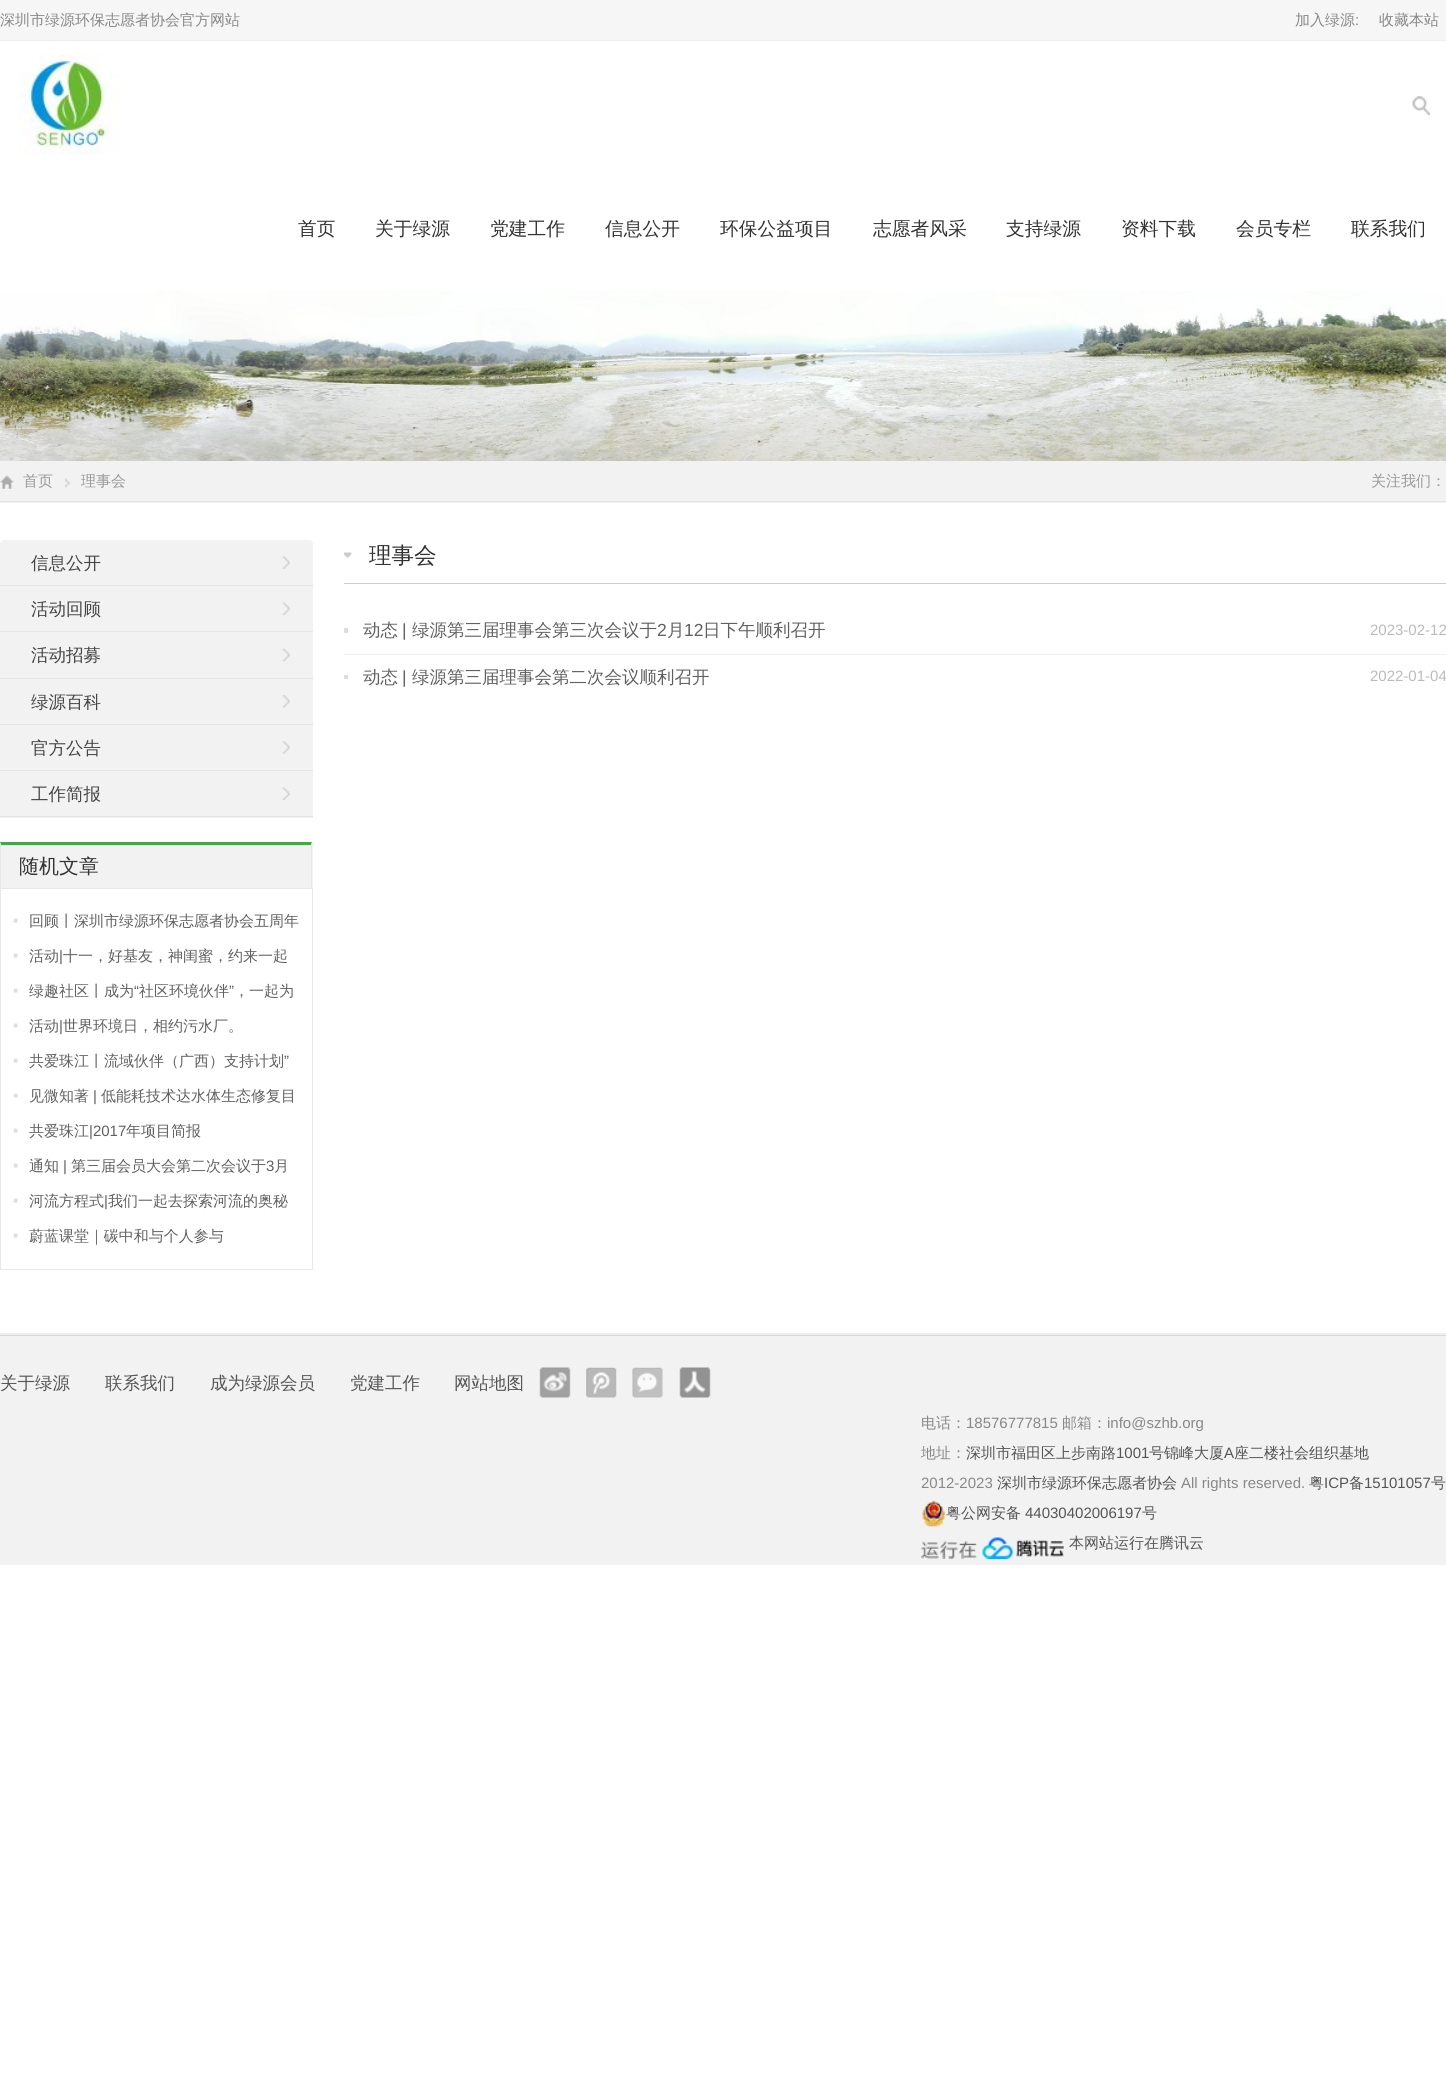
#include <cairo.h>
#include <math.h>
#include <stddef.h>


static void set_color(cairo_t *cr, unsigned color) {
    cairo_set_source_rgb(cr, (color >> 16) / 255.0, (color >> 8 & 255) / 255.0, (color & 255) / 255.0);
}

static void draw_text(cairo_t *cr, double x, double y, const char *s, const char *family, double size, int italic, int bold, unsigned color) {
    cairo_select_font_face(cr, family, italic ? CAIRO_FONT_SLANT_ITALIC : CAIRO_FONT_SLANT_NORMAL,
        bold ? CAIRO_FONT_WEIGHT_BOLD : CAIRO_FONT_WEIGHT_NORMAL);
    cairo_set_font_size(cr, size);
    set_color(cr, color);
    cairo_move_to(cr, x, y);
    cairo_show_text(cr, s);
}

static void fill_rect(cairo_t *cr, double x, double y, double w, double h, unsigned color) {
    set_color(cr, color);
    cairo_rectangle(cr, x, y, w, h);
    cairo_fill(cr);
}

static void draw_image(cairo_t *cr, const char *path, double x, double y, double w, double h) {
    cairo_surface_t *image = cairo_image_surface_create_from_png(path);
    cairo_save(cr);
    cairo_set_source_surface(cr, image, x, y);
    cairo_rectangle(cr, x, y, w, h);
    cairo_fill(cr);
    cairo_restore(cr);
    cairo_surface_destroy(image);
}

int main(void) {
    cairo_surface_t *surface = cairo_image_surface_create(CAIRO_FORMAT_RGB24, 1446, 2084);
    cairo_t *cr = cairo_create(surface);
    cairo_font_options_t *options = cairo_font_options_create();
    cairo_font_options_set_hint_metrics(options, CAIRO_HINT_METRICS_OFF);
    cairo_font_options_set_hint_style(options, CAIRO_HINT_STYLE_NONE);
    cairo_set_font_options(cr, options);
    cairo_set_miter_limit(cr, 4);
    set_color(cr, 0xFFFFFF);
    cairo_paint(cr);
    fill_rect(cr, 0, 0, 1446, 40, 0xF6F6F6);
    fill_rect(cr, 0, 40, 1446, 1, 0xEEEEEE);
    draw_text(cr, 0, 25, "深圳市绿源环保志愿者协会官方网站", "WenQuanYi Zen Hei Medium", 15, 0, 0, 0x888888);
    draw_text(cr, 1295, 25, "加入绿源", "WenQuanYi Zen Hei Medium", 15, 0, 0, 0x888888);
    draw_text(cr, 1355, 25, ":", "Liberation Sans", 15, 0, 0, 0x888888);
    draw_text(cr, 1379, 25, "收藏本站", "WenQuanYi Zen Hei Medium", 15, 0, 0, 0x888888);
    draw_image(cr, "assets/img1.png", 19, 54, 101, 100);
    draw_image(cr, "assets/img2.png", 1412, 96, 18, 20);
    draw_text(cr, 298, 235, "首页", "WenQuanYi Zen Hei Medium", 18.75, 0, 0, 0x333333);
    draw_text(cr, 375, 235, "关于绿源", "WenQuanYi Zen Hei Medium", 18.75, 0, 0, 0x333333);
    draw_text(cr, 490, 235, "党建工作", "WenQuanYi Zen Hei Medium", 18.75, 0, 0, 0x333333);
    draw_text(cr, 605, 235, "信息公开", "WenQuanYi Zen Hei Medium", 18.75, 0, 0, 0x333333);
    draw_text(cr, 720, 235, "环保公益项目", "WenQuanYi Zen Hei Medium", 18.75, 0, 0, 0x333333);
    draw_text(cr, 873, 235, "志愿者风采", "WenQuanYi Zen Hei Medium", 18.75, 0, 0, 0x333333);
    draw_text(cr, 1006, 235, "支持绿源", "WenQuanYi Zen Hei Medium", 18.75, 0, 0, 0x333333);
    draw_text(cr, 1121, 235, "资料下载", "WenQuanYi Zen Hei Medium", 18.75, 0, 0, 0x333333);
    draw_text(cr, 1236, 235, "会员专栏", "WenQuanYi Zen Hei Medium", 18.75, 0, 0, 0x333333);
    draw_text(cr, 1351, 235, "联系我们", "WenQuanYi Zen Hei Medium", 18.75, 0, 0, 0x333333);
    draw_image(cr, "assets/img3.png", 0, 291, 1446, 170);
    fill_rect(cr, 0, 461, 1446, 42, 0xF2F2F2);
    fill_rect(cr, 0, 501, 1446, 1, 0xE4E4E4);
    draw_image(cr, "assets/img4.png", 0, 475, 14, 14);
    draw_text(cr, 23, 486, "首页", "WenQuanYi Zen Hei Medium", 15, 0, 0, 0x999999);
    draw_image(cr, "assets/img5.png", 65, 478, 6, 10);
    draw_text(cr, 81, 486, "理事会", "WenQuanYi Zen Hei Medium", 15, 0, 0, 0x999999);
    draw_text(cr, 1371, 486, "关注我们：", "WenQuanYi Zen Hei Medium", 15, 0, 0, 0x999999);
    set_color(cr, 0xF2F2F2);
    cairo_new_path(cr);
    cairo_move_to(cr, 5, 540);
    cairo_line_to(cr, 308, 540);
    cairo_curve_to(cr, 311, 540, 313, 542, 313, 545);
    cairo_line_to(cr, 313, 818);
    cairo_line_to(cr, 0, 818);
    cairo_line_to(cr, 0, 545);
    cairo_curve_to(cr, 0, 542, 2, 540, 5, 540);
    cairo_close_path(cr);
    cairo_fill(cr);
    fill_rect(cr, 0, 585, 313, 1, 0xE4E4E4);
    set_color(cr, 0xF2F2F2);
    cairo_new_path(cr);
    cairo_move_to(cr, 5, 540);
    cairo_line_to(cr, 308, 540);
    cairo_curve_to(cr, 311, 540, 313, 542, 313, 545);
    cairo_line_to(cr, 313, 585);
    cairo_line_to(cr, 0, 585);
    cairo_line_to(cr, 0, 545);
    cairo_curve_to(cr, 0, 542, 2, 540, 5, 540);
    cairo_close_path(cr);
    cairo_fill(cr);
    draw_image(cr, "assets/img6.png", 282, 556, 8, 13);
    draw_text(cr, 31, 569, "信息公开", "WenQuanYi Zen Hei Medium", 17.5, 0, 0, 0x444444);
    fill_rect(cr, 0, 631, 313, 1, 0xE4E4E4);
    draw_image(cr, "assets/img7.png", 282, 602, 8, 13);
    draw_text(cr, 31, 615, "活动回顾", "WenQuanYi Zen Hei Medium", 17.5, 0, 0, 0x444444);
    fill_rect(cr, 0, 678, 313, 1, 0xE4E4E4);
    draw_image(cr, "assets/img8.png", 282, 648, 8, 14);
    draw_text(cr, 31, 661, "活动招募", "WenQuanYi Zen Hei Medium", 17.5, 0, 0, 0x444444);
    fill_rect(cr, 0, 724, 313, 1, 0xE4E4E4);
    draw_image(cr, "assets/img9.png", 282, 695, 8, 13);
    draw_text(cr, 31, 708, "绿源百科", "WenQuanYi Zen Hei Medium", 17.5, 0, 0, 0x444444);
    fill_rect(cr, 0, 770, 313, 1, 0xE4E4E4);
    draw_image(cr, "assets/img6.png", 282, 741, 8, 13);
    draw_text(cr, 31, 754, "官方公告", "WenQuanYi Zen Hei Medium", 17.5, 0, 0, 0x444444);
    fill_rect(cr, 0, 816, 313, 1, 0xE4E4E4);
    draw_image(cr, "assets/img10.png", 282, 787, 8, 13);
    draw_text(cr, 31, 800, "工作简报", "WenQuanYi Zen Hei Medium", 17.5, 0, 0, 0x444444);
    fill_rect(cr, 0, 843, 313, 45, 0xF2F2F2);
    set_color(cr, 0x46A546);
    cairo_new_path(cr);
    cairo_move_to(cr, 0, 842);
    cairo_line_to(cr, 312, 842);
    cairo_line_to(cr, 311, 845);
    cairo_line_to(cr, 1, 845);
    cairo_close_path(cr);
    cairo_fill(cr);
    set_color(cr, 0xE8E8E8);
    cairo_new_path(cr);
    cairo_move_to(cr, 312, 842);
    cairo_line_to(cr, 312, 888);
    cairo_line_to(cr, 311, 888);
    cairo_line_to(cr, 311, 845);
    cairo_close_path(cr);
    cairo_fill(cr);
    cairo_new_path(cr);
    cairo_move_to(cr, 0, 888);
    cairo_line_to(cr, 0, 842);
    cairo_line_to(cr, 1, 845);
    cairo_line_to(cr, 1, 888);
    cairo_close_path(cr);
    cairo_fill(cr);
    draw_text(cr, 19, 873, "随机文章", "WenQuanYi Zen Hei Medium", 20, 0, 0, 0x333333);
    cairo_rectangle(cr, 0.5, 888.5, 312, 381);
    set_color(cr, 0xE8E8E8);
    cairo_set_line_width(cr, 1);
    cairo_stroke(cr);
    draw_image(cr, "assets/img11.png", 13, 918, 5, 5);
    draw_text(cr, 29, 926, "回顾丨深圳市绿源环保志愿者协会五周年", "WenQuanYi Zen Hei Medium", 15, 0, 0, 0x606060);
    draw_image(cr, "assets/img11.png", 13, 953, 5, 5);
    draw_text(cr, 29, 961, "活动", "WenQuanYi Zen Hei Medium", 15, 0, 0, 0x606060);
    draw_text(cr, 59, 961, "|", "Liberation Sans", 15, 0, 0, 0x606060);
    draw_text(cr, 63, 961, "十一，好基友，神闺蜜，约来一起", "WenQuanYi Zen Hei Medium", 15, 0, 0, 0x606060);
    draw_image(cr, "assets/img11.png", 13, 988, 5, 5);
    draw_text(cr, 29, 996, "绿趣社区丨成为", "WenQuanYi Zen Hei Medium", 15, 0, 0, 0x606060);
    draw_text(cr, 134, 996, "“", "Liberation Sans", 15, 0, 0, 0x606060);
    draw_text(cr, 139, 996, "社区环境伙伴", "WenQuanYi Zen Hei Medium", 15, 0, 0, 0x606060);
    draw_text(cr, 229, 996, "”", "Liberation Sans", 15, 0, 0, 0x606060);
    draw_text(cr, 234, 996, "，一起为", "WenQuanYi Zen Hei Medium", 15, 0, 0, 0x606060);
    draw_image(cr, "assets/img11.png", 13, 1023, 5, 5);
    draw_text(cr, 29, 1031, "活动", "WenQuanYi Zen Hei Medium", 15, 0, 0, 0x606060);
    draw_text(cr, 59, 1031, "|", "Liberation Sans", 15, 0, 0, 0x606060);
    draw_text(cr, 63, 1031, "世界环境日，相约污水厂。", "WenQuanYi Zen Hei Medium", 15, 0, 0, 0x606060);
    draw_image(cr, "assets/img11.png", 13, 1058, 5, 5);
    draw_text(cr, 29, 1066, "共爱珠江丨流域伙伴（广西）支持计划", "WenQuanYi Zen Hei Medium", 15, 0, 0, 0x606060);
    draw_text(cr, 284, 1066, "”", "Liberation Sans", 15, 0, 0, 0x606060);
    draw_image(cr, "assets/img11.png", 13, 1093, 5, 5);
    draw_text(cr, 29, 1101, "见微知著", "WenQuanYi Zen Hei Medium", 15, 0, 0, 0x606060);
    draw_text(cr, 93, 1101, "|", "Liberation Sans", 15, 0, 0, 0x606060);
    draw_text(cr, 101, 1101, "低能耗技术达水体生态修复目", "WenQuanYi Zen Hei Medium", 15, 0, 0, 0x606060);
    draw_image(cr, "assets/img11.png", 13, 1128, 5, 5);
    draw_text(cr, 29, 1136, "共爱珠江", "WenQuanYi Zen Hei Medium", 15, 0, 0, 0x606060);
    draw_text(cr, 89, 1136, "|2017", "Liberation Sans", 15, 0, 0, 0x606060);
    draw_text(cr, 126, 1136, "年项目简报", "WenQuanYi Zen Hei Medium", 15, 0, 0, 0x606060);
    draw_image(cr, "assets/img11.png", 13, 1163, 5, 5);
    draw_text(cr, 29, 1171, "通知", "WenQuanYi Zen Hei Medium", 15, 0, 0, 0x606060);
    draw_text(cr, 63, 1171, "|", "Liberation Sans", 15, 0, 0, 0x606060);
    draw_text(cr, 71, 1171, "第三届会员大会第二次会议于", "WenQuanYi Zen Hei Medium", 15, 0, 0, 0x606060);
    draw_text(cr, 266, 1171, "3", "Liberation Sans", 15, 0, 0, 0x606060);
    draw_text(cr, 274, 1171, "月", "WenQuanYi Zen Hei Medium", 15, 0, 0, 0x606060);
    draw_image(cr, "assets/img11.png", 13, 1198, 5, 5);
    draw_text(cr, 29, 1206, "河流方程式", "WenQuanYi Zen Hei Medium", 15, 0, 0, 0x606060);
    draw_text(cr, 104, 1206, "|", "Liberation Sans", 15, 0, 0, 0x606060);
    draw_text(cr, 108, 1206, "我们一起去探索河流的奥秘", "WenQuanYi Zen Hei Medium", 15, 0, 0, 0x606060);
    draw_image(cr, "assets/img11.png", 13, 1233, 5, 5);
    draw_text(cr, 29, 1241, "蔚蓝课堂｜碳中和与个人参与", "WenQuanYi Zen Hei Medium", 15, 0, 0, 0x606060);
    draw_image(cr, "assets/img12.png", 344, 552, 8, 6);
    fill_rect(cr, 344, 583, 1102, 1, 0xCCCCCC);
    draw_text(cr, 369, 563, "理事会", "WenQuanYi Zen Hei Medium", 22.5, 0, 0, 0x333333);
    fill_rect(cr, 344, 628, 4, 5, 0xDDDDDD);
    fill_rect(cr, 344, 654, 1102, 1, 0xEEEEEE);
    draw_text(cr, 363, 636, "动态", "WenQuanYi Zen Hei Medium", 17.5, 0, 0, 0x606060);
    draw_text(cr, 402, 636, "|", "Liberation Sans", 17.5, 0, 0, 0x606060);
    draw_text(cr, 412, 636, "绿源第三届理事会第三次会议于", "WenQuanYi Zen Hei Medium", 17.5, 0, 0, 0x606060);
    draw_text(cr, 657, 636, "2", "Liberation Sans", 17.5, 0, 0, 0x606060);
    draw_text(cr, 667, 636, "月", "WenQuanYi Zen Hei Medium", 17.5, 0, 0, 0x606060);
    draw_text(cr, 684, 636, "12", "Liberation Sans", 17.5, 0, 0, 0x606060);
    draw_text(cr, 703, 636, "日下午顺利召开", "WenQuanYi Zen Hei Medium", 17.5, 0, 0, 0x606060);
    draw_text(cr, 1370, 635, "2023-02-12", "Liberation Sans", 15, 0, 0, 0xBBBBBB);
    fill_rect(cr, 344, 675, 4, 4, 0xDDDDDD);
    draw_text(cr, 363, 683, "动态", "WenQuanYi Zen Hei Medium", 17.5, 0, 0, 0x606060);
    draw_text(cr, 402, 683, "|", "Liberation Sans", 17.5, 0, 0, 0x606060);
    draw_text(cr, 412, 683, "绿源第三届理事会第二次会议顺利召开", "WenQuanYi Zen Hei Medium", 17.5, 0, 0, 0x606060);
    draw_text(cr, 1370, 681, "2022-01-04", "Liberation Sans", 15, 0, 0, 0xBBBBBB);
    fill_rect(cr, 0, 1336, 1446, 229, 0xF2F2F2);
    fill_rect(cr, 0, 1333, 1446, 2, 0xEEEEEE);
    fill_rect(cr, 0, 1335, 1446, 1, 0xD9D9D9);
    draw_text(cr, 0, 1389, "关于绿源", "WenQuanYi Zen Hei Medium", 17.5, 0, 0, 0x555555);
    draw_text(cr, 105, 1389, "联系我们", "WenQuanYi Zen Hei Medium", 17.5, 0, 0, 0x555555);
    draw_text(cr, 210, 1389, "成为绿源会员", "WenQuanYi Zen Hei Medium", 17.5, 0, 0, 0x555555);
    draw_text(cr, 350, 1389, "党建工作", "WenQuanYi Zen Hei Medium", 17.5, 0, 0, 0x555555);
    draw_text(cr, 454, 1389, "网站地图", "WenQuanYi Zen Hei Medium", 17.5, 0, 0, 0x555555);
    draw_image(cr, "assets/img13.png", 539, 1367, 32, 31);
    draw_image(cr, "assets/img14.png", 586, 1367, 31, 31);
    draw_image(cr, "assets/img15.png", 632, 1367, 31, 31);
    draw_image(cr, "assets/img16.png", 679, 1367, 32, 31);
    draw_text(cr, 921, 1428, "电话：", "WenQuanYi Zen Hei Medium", 15, 0, 0, 0x888888);
    draw_text(cr, 966, 1428, "18576777815", "Liberation Sans", 15, 0, 0, 0x888888);
    draw_text(cr, 1062, 1428, "邮箱：", "WenQuanYi Zen Hei Medium", 15, 0, 0, 0x888888);
    draw_text(cr, 1107, 1428, "info@szhb.org", "Liberation Sans", 15, 0, 0, 0x888888);
    draw_text(cr, 921, 1458, "地址：", "WenQuanYi Zen Hei Medium", 15, 0, 0, 0x888888);
    draw_text(cr, 966, 1458, "深圳市福田区上步南路", "WenQuanYi Zen Hei Medium", 15, 0, 0, 0x555555);
    draw_text(cr, 1116, 1458, "1001", "Liberation Sans", 15, 0, 0, 0x555555);
    draw_text(cr, 1149, 1458, "号锦峰大厦", "WenQuanYi Zen Hei Medium", 15, 0, 0, 0x555555);
    draw_text(cr, 1224, 1458, "A", "Liberation Sans", 15, 0, 0, 0x555555);
    draw_text(cr, 1234, 1458, "座二楼社会组织基地", "WenQuanYi Zen Hei Medium", 15, 0, 0, 0x555555);
    draw_text(cr, 921, 1488, "2012-2023", "Liberation Sans", 15, 0, 0, 0x888888);
    draw_text(cr, 997, 1488, "深圳市绿源环保志愿者协会", "WenQuanYi Zen Hei Medium", 15, 0, 0, 0x555555);
    draw_text(cr, 1181, 1488, "All rights reserved.", "Liberation Sans", 15, 0, 0, 0x888888);
    draw_text(cr, 1309, 1488, "粤", "WenQuanYi Zen Hei Medium", 15, 0, 0, 0x555555);
    draw_text(cr, 1324, 1488, "ICP", "Liberation Sans", 15, 0, 0, 0x555555);
    draw_text(cr, 1349, 1488, "备", "WenQuanYi Zen Hei Medium", 15, 0, 0, 0x555555);
    draw_text(cr, 1364, 1488, "15101057", "Liberation Sans", 15, 0, 0, 0x555555);
    draw_text(cr, 1431, 1488, "号", "WenQuanYi Zen Hei Medium", 15, 0, 0, 0x555555);
    draw_image(cr, "assets/img17.png", 922, 1501, 24, 26);
    draw_text(cr, 946, 1518, "粤公网安备", "WenQuanYi Zen Hei Medium", 15, 0, 0, 0x555555);
    draw_text(cr, 1025, 1518, "44030402006197", "Liberation Sans", 15, 0, 0, 0x555555);
    draw_text(cr, 1142, 1518, "号", "WenQuanYi Zen Hei Medium", 15, 0, 0, 0x555555);
    draw_image(cr, "assets/img18.png", 921, 1537, 143, 22);
    draw_text(cr, 1069, 1548, "本网站运行在腾讯云", "WenQuanYi Zen Hei Medium", 15, 0, 0, 0x555555);
    cairo_surface_write_to_png(surface, "output.png");
    cairo_font_options_destroy(options);
    cairo_destroy(cr);
    cairo_surface_destroy(surface);
    return 0;
}
